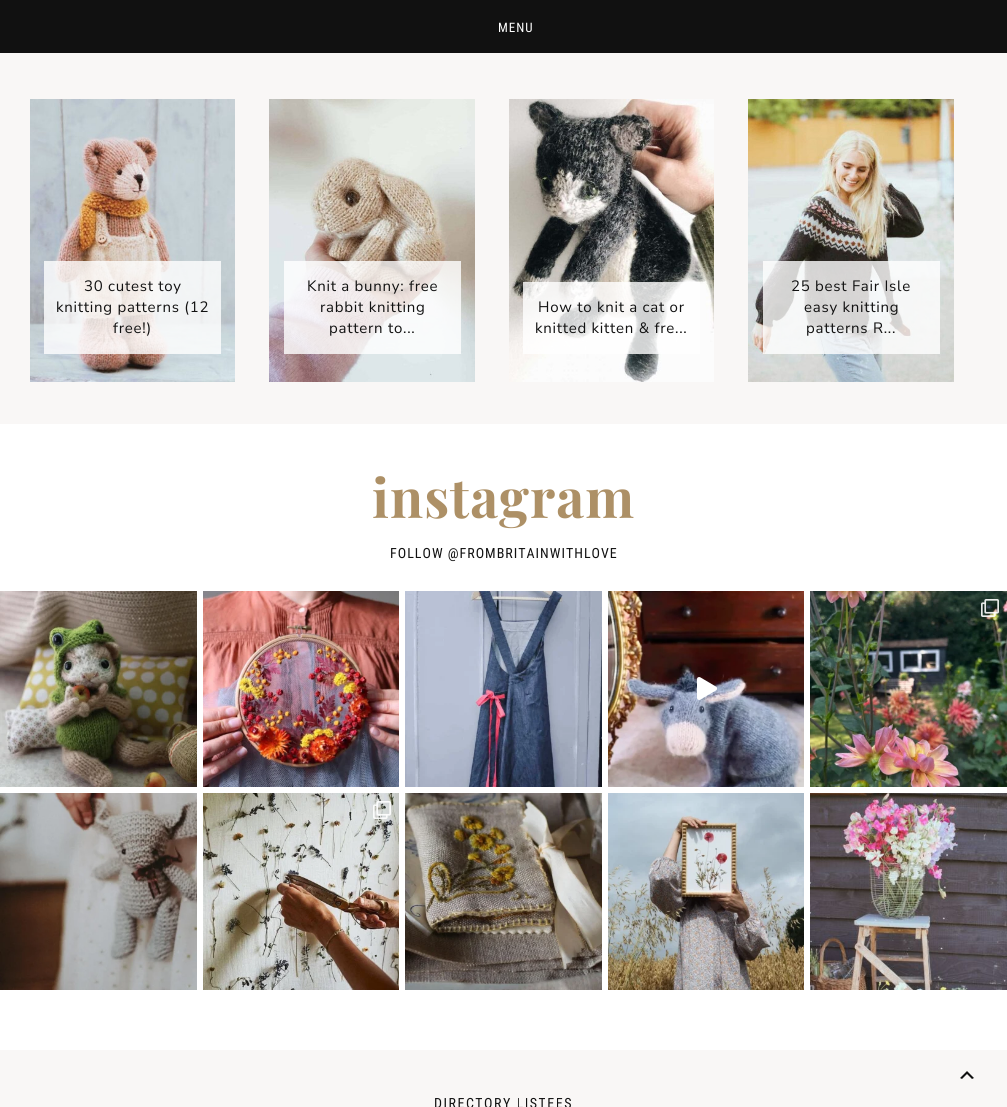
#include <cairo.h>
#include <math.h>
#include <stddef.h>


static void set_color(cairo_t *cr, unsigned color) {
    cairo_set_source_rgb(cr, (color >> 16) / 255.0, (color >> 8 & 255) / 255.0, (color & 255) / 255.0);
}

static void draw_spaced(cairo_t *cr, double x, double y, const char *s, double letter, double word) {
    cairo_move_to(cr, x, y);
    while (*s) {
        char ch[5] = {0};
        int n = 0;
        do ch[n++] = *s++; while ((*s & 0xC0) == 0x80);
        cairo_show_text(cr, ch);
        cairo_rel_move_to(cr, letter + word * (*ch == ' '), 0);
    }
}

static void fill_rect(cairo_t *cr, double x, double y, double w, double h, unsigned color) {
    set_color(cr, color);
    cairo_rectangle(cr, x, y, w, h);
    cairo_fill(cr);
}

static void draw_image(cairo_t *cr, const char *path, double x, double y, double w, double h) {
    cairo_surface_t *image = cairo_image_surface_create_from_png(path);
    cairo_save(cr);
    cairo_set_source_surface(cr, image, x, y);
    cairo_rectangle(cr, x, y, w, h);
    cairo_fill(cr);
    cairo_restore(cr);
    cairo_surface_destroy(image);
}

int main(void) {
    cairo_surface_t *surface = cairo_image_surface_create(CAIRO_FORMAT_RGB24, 1007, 1107);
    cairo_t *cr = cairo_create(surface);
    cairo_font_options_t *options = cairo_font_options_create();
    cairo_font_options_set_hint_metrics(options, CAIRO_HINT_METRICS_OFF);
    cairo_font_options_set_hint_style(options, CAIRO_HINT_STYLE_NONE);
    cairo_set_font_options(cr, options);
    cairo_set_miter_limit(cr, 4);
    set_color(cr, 0xFFFFFF);
    cairo_paint(cr);
    fill_rect(cr, 0, 0, 1007, 53, 0x111111);
    cairo_select_font_face(cr, "Roboto Condensed", CAIRO_FONT_SLANT_NORMAL, CAIRO_FONT_WEIGHT_NORMAL);
    cairo_set_font_size(cr, 13);
    set_color(cr, 0xFFFFFF);
    draw_spaced(cr, 498, 32, "MENU", 1, 0);
    fill_rect(cr, 0, 53, 1007, 371, 0xF9F7F6);
    draw_image(cr, "assets/img1.png", 30, 99, 205, 283);
    cairo_set_source_rgba(cr, 1, 1, 1, 0.8);
    cairo_rectangle(cr, 44, 261, 177, 93);
    cairo_fill(cr);
    cairo_select_font_face(cr, "Nunito Sans", CAIRO_FONT_SLANT_NORMAL, CAIRO_FONT_WEIGHT_NORMAL);
    cairo_set_font_size(cr, 15);
    set_color(cr, 0x111111);
    draw_spaced(cr, 84, 291, "30 cutest toy", 0.75, 0);
    draw_spaced(cr, 56, 312, "knitting patterns (12", 0.75, 0);
    draw_spaced(cr, 113, 333, "free!)", 0.75, 0);
    draw_image(cr, "assets/img2.png", 269, 99, 206, 283);
    cairo_set_source_rgba(cr, 1, 1, 1, 0.8);
    cairo_rectangle(cr, 284, 261, 177, 93);
    cairo_fill(cr);
    set_color(cr, 0x111111);
    draw_spaced(cr, 307, 291, "Knit a bunny: free", 0.75, 0);
    draw_spaced(cr, 320, 312, "rabbit knitting", 0.75, 0);
    draw_spaced(cr, 329, 333, "pattern to...", 0.75, 0);
    draw_image(cr, "assets/img3.png", 509, 99, 205, 283);
    cairo_set_source_rgba(cr, 1, 1, 1, 0.8);
    cairo_rectangle(cr, 523, 282, 177, 72);
    cairo_fill(cr);
    set_color(cr, 0x111111);
    draw_spaced(cr, 538, 312, "How to knit a cat or", 0.75, 0);
    draw_spaced(cr, 535, 333, "knitted kitten & fre...", 0.75, 0);
    draw_image(cr, "assets/img4.png", 748, 99, 206, 283);
    cairo_set_source_rgba(cr, 1, 1, 1, 0.8);
    cairo_rectangle(cr, 763, 261, 177, 93);
    cairo_fill(cr);
    set_color(cr, 0x111111);
    draw_spaced(cr, 791, 291, "25 best Fair Isle", 0.75, 0);
    draw_spaced(cr, 804, 312, "easy knitting", 0.75, 0);
    draw_spaced(cr, 806, 333, "patterns R...", 0.75, 0);
    cairo_select_font_face(cr, "Playfair Display", CAIRO_FONT_SLANT_NORMAL, CAIRO_FONT_WEIGHT_BOLD);
    cairo_set_font_size(cr, 54);
    set_color(cr, 0xAD9066);
    draw_spaced(cr, 372, 518, "instagram", 1, 0);
    cairo_select_font_face(cr, "Roboto Condensed", CAIRO_FONT_SLANT_NORMAL, CAIRO_FONT_WEIGHT_NORMAL);
    cairo_set_font_size(cr, 14);
    set_color(cr, 0x111111);
    draw_spaced(cr, 390, 558, "FOLLOW @FROMBRITAINWITHLOVE", 1, 0);
    draw_image(cr, "assets/img5.png", 0, 591, 197, 196);
    draw_image(cr, "assets/img6.png", 203, 591, 196, 196);
    draw_image(cr, "assets/img7.png", 405, 591, 197, 196);
    draw_image(cr, "assets/img8.png", 608, 591, 196, 196);
    draw_image(cr, "assets/img9.png", 697, 677, 20, 23);
    draw_image(cr, "assets/img10.png", 810, 591, 197, 196);
    draw_image(cr, "assets/img11.png", 981, 599, 18, 18);
    draw_image(cr, "assets/img12.png", 0, 793, 197, 197);
    draw_image(cr, "assets/img13.png", 203, 793, 196, 197);
    draw_image(cr, "assets/img14.png", 373, 801, 18, 18);
    draw_image(cr, "assets/img15.png", 405, 793, 197, 197);
    draw_image(cr, "assets/img16.png", 608, 793, 196, 197);
    draw_image(cr, "assets/img17.png", 810, 793, 197, 197);
    fill_rect(cr, 0, 1050, 1007, 57, 0xF9F7F6);
    draw_image(cr, "assets/img18.png", 960, 1071, 14, 8);
    set_color(cr, 0x111111);
    draw_spaced(cr, 434, 1108, "DIRECTORY LISTEES", 1.5, 0);
    cairo_surface_write_to_png(surface, "output.png");
    cairo_font_options_destroy(options);
    cairo_destroy(cr);
    cairo_surface_destroy(surface);
    return 0;
}
